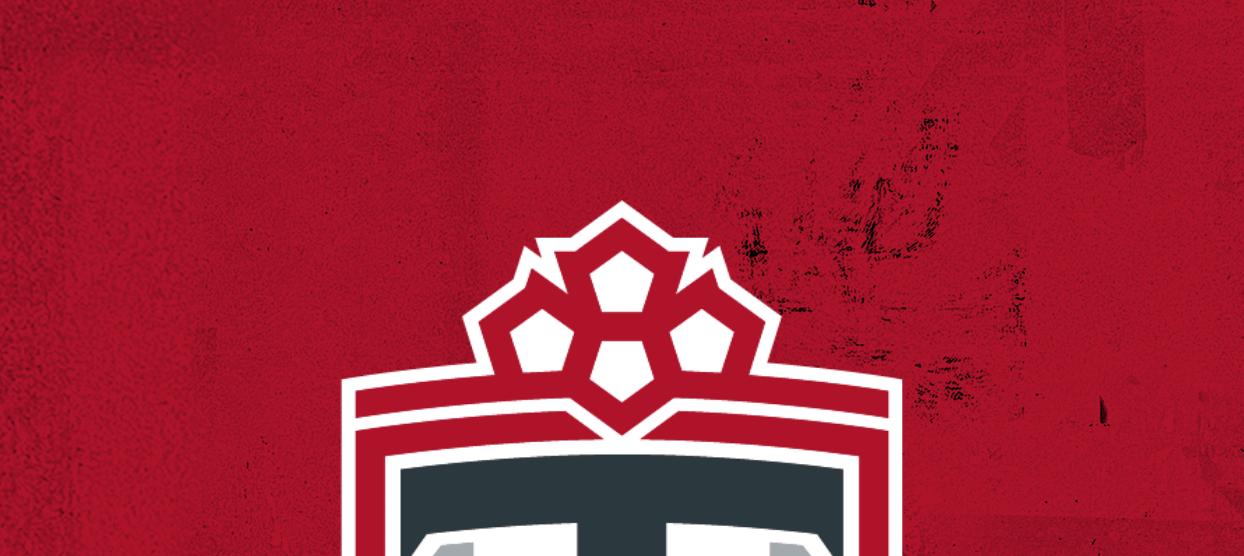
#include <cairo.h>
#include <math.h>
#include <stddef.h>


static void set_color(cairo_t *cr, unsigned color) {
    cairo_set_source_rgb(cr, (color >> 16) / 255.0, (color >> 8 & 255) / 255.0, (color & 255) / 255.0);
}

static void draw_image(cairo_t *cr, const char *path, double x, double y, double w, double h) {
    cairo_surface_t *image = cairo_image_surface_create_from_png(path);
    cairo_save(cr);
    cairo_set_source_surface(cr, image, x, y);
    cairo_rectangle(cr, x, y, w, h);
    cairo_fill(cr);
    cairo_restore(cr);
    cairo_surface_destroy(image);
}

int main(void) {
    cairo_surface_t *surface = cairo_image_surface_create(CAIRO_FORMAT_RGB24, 1244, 556);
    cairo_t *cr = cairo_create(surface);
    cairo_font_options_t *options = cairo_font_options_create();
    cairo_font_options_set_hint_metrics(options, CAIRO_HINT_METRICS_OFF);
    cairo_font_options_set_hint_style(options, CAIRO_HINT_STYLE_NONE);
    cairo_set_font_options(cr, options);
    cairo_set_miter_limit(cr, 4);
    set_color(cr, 0xFFFFFF);
    cairo_paint(cr);
    draw_image(cr, "assets/img1.png", 0, 0, 1244, 556);
    draw_image(cr, "assets/img2.png", 340, 200, 563, 356);
    cairo_surface_write_to_png(surface, "output.png");
    cairo_font_options_destroy(options);
    cairo_destroy(cr);
    cairo_surface_destroy(surface);
    return 0;
}
